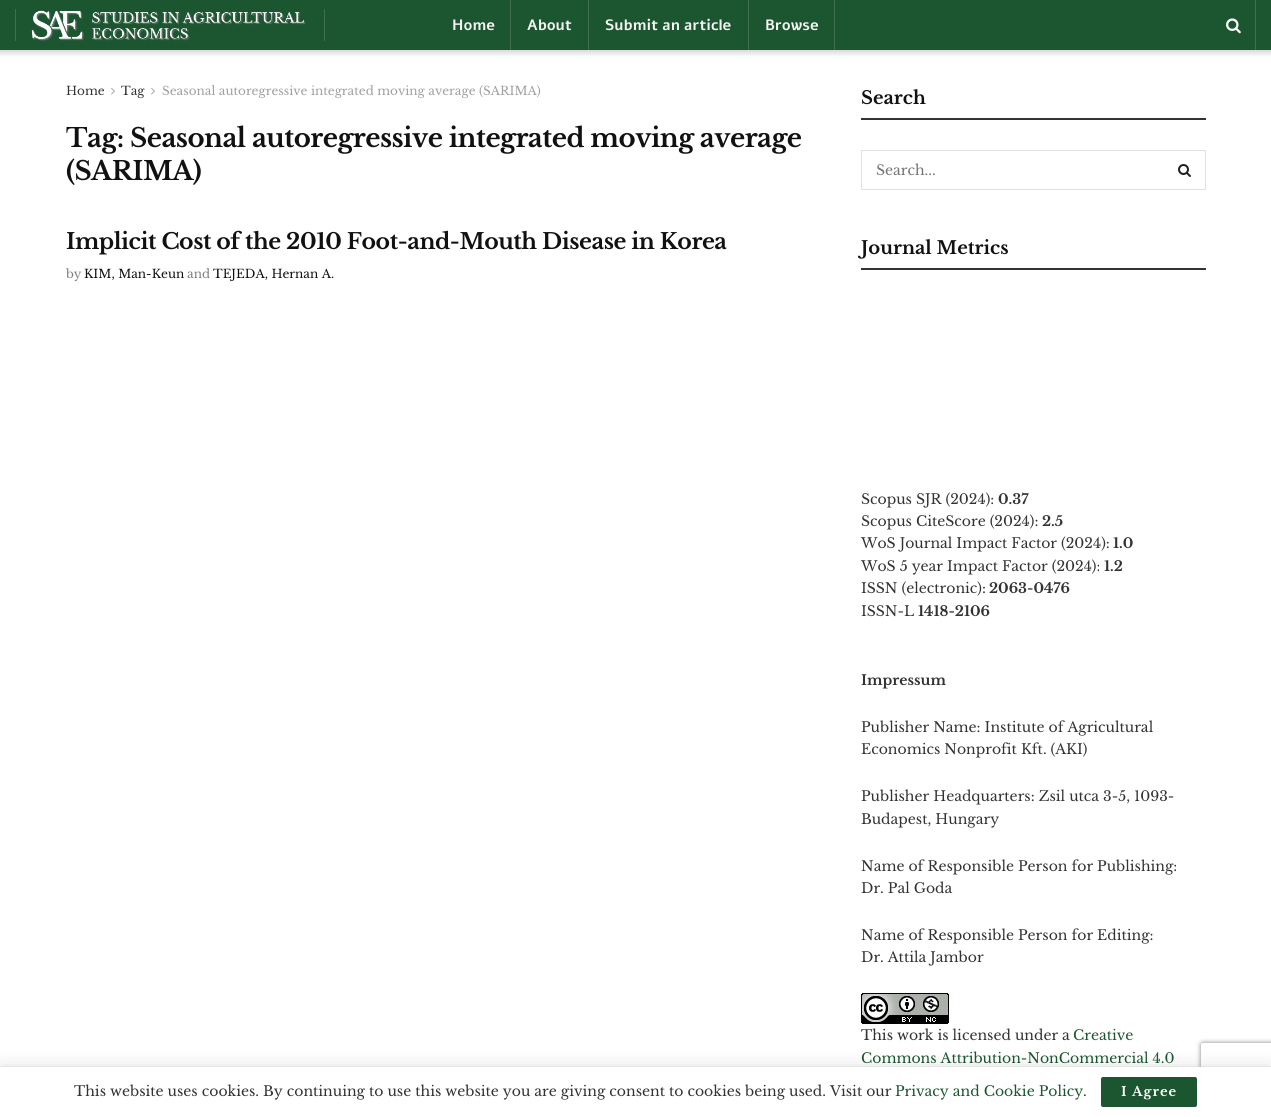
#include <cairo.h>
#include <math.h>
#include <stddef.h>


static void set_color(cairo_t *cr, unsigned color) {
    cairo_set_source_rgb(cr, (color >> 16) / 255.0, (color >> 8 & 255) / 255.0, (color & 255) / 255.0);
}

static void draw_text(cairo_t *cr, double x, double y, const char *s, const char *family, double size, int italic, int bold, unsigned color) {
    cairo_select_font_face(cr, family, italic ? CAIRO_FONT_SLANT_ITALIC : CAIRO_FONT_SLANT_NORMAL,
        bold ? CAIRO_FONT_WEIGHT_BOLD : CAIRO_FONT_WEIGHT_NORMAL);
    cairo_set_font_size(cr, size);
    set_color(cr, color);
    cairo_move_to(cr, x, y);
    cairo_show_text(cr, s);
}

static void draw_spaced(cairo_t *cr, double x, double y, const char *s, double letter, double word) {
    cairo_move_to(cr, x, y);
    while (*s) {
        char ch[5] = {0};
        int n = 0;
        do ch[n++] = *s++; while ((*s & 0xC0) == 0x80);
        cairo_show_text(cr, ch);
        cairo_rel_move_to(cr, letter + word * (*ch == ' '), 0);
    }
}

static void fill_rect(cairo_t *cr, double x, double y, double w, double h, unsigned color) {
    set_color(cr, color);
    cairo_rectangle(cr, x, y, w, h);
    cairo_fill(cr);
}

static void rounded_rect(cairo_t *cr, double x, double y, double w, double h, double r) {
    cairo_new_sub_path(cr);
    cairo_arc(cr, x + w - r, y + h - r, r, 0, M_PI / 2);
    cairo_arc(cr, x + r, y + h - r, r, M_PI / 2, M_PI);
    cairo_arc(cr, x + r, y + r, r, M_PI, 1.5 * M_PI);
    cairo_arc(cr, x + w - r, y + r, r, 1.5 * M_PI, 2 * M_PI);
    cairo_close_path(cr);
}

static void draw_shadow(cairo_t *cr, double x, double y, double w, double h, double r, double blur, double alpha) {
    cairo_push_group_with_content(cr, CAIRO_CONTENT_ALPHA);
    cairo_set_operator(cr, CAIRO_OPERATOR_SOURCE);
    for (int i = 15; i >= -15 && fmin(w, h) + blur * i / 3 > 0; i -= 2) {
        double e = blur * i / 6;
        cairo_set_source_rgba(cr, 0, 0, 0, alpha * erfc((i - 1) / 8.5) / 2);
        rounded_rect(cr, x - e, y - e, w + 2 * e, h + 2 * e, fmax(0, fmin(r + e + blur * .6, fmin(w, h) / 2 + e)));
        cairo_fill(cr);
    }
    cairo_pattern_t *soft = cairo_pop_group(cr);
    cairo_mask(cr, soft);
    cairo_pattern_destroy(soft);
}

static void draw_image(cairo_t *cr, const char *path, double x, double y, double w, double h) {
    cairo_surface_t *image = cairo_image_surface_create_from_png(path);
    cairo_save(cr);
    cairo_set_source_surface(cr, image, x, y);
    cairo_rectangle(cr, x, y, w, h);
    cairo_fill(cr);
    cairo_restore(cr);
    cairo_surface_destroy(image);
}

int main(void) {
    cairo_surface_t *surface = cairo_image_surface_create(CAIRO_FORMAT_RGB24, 1271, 1117);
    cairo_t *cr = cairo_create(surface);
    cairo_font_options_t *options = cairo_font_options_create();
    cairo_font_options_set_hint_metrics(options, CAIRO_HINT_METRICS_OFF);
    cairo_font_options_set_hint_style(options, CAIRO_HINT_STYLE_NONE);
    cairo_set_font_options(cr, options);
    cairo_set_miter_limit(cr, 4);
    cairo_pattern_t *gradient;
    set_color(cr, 0xFFFFFF);
    cairo_paint(cr);
    fill_rect(cr, 0, 0, 1271, 50, 0x1C5631);
    fill_rect(cr, 324, 9, 1, 32, 0x3E6F50);
    fill_rect(cr, 15, 9, 1, 32, 0x3E6F50);
    draw_image(cr, "assets/img1.png", 31, 10, 275, 31);
    fill_rect(cr, 834, 0, 1, 50, 0x3E6F50);
    fill_rect(cr, 510, 0, 1, 50, 0x3E6F50);
    draw_text(cr, 452, 30, "Home", "Alef", 15, 0, 1, 0xF5F5F5);
    fill_rect(cr, 588, 0, 1, 50, 0x3E6F50);
    draw_text(cr, 527, 30, "About", "Alef", 15, 0, 1, 0xF5F5F5);
    fill_rect(cr, 748, 0, 1, 50, 0x3E6F50);
    draw_text(cr, 605, 30, "Submit an article", "Alef", 15, 0, 1, 0xF5F5F5);
    draw_text(cr, 765, 30, "Browse", "Alef", 15, 0, 1, 0xF5F5F5);
    fill_rect(cr, 1255, 0, 1, 50, 0x3E6F50);
    draw_image(cr, "assets/img2.png", 1226, 18, 15, 16);
    gradient = cairo_pattern_create_linear(636, 50, 636, 57);
    cairo_pattern_add_color_stop_rgba(gradient, 0, 0.851, 0.851, 0.851, 1);
    cairo_pattern_add_color_stop_rgba(gradient, 1, 1, 1, 1, 1);
    cairo_set_source(cr, gradient);
    cairo_pattern_destroy(gradient);
    cairo_rectangle(cr, 0, 50, 1271, 7);
    cairo_fill(cr);
    draw_text(cr, 66, 95, "Home", "Libre Baskerville", 12, 0, 0, 0x333333);
    draw_image(cr, "assets/img3.png", 111, 87, 4, 8);
    draw_text(cr, 121, 95, "Tag", "Libre Baskerville", 12, 0, 0, 0x333333);
    draw_image(cr, "assets/img3.png", 151, 87, 4, 8);
    draw_text(cr, 162, 95, "Seasonal autoregressive integrated moving average (SARIMA)", "Libre Baskerville", 12, 0, 0, 0xA0A0A0);
    cairo_select_font_face(cr, "Libre Baskerville", CAIRO_FONT_SLANT_NORMAL, CAIRO_FONT_WEIGHT_BOLD);
    cairo_set_font_size(cr, 26);
    set_color(cr, 0x111111);
    draw_spaced(cr, 66, 147, "Tag: Seasonal autoregressive integrated moving average", -0.52, 0);
    draw_spaced(cr, 66, 180, "(SARIMA)", -0.52, 0);
    cairo_set_font_size(cr, 22);
    draw_spaced(cr, 66, 249, "Implicit Cost of the 2010 Foot-and-Mouth Disease in Korea", -0.45, 0);
    draw_text(cr, 66, 278, "by", "Libre Baskerville", 12, 0, 0, 0x808080);
    draw_text(cr, 84, 278, "KIM, Man-Keun", "Libre Baskerville", 12, 0, 0, 0x111111);
    draw_text(cr, 187, 278, "and", "Libre Baskerville", 12, 0, 0, 0x808080);
    draw_text(cr, 213, 278, "TEJEDA, Hernan A.", "Libre Baskerville", 12, 0, 0, 0x111111);
    fill_rect(cr, 861, 118, 345, 2, 0x333333);
    draw_text(cr, 861, 104, "Search", "Libre Baskerville", 18, 0, 1, 0x111111);
    cairo_rectangle(cr, 861.5, 150.5, 344, 39);
    set_color(cr, 0xE0E0E0);
    cairo_set_line_width(cr, 1);
    cairo_stroke(cr);
    draw_text(cr, 876, 175, "Search...", "Libre Baskerville", 14, 0, 0, 0x757575);
    draw_image(cr, "assets/img4.png", 1178, 164, 13, 13);
    fill_rect(cr, 861, 268, 345, 2, 0x333333);
    draw_text(cr, 861, 254, "Journal Metrics", "Libre Baskerville", 18, 0, 1, 0x111111);
    draw_text(cr, 861, 504, "Scopus SJR (2024):", "Libre Baskerville", 14, 0, 0, 0x333333);
    draw_text(cr, 998, 504, "0.37", "Libre Baskerville", 14, 0, 1, 0x333333);
    draw_text(cr, 861, 526, "Scopus CiteScore (2024):", "Libre Baskerville", 14, 0, 0, 0x333333);
    draw_text(cr, 1042, 526, "2.5", "Libre Baskerville", 14, 0, 1, 0x333333);
    draw_text(cr, 861, 548, "WoS Journal Impact Factor (2024):", "Libre Baskerville", 14, 0, 0, 0x333333);
    draw_text(cr, 1113, 548, "1.0", "Libre Baskerville", 14, 0, 1, 0x333333);
    draw_text(cr, 861, 571, "WoS 5 year Impact Factor (2024):", "Libre Baskerville", 14, 0, 0, 0x333333);
    draw_text(cr, 1104, 571, "1.2", "Libre Baskerville", 14, 0, 1, 0x333333);
    draw_text(cr, 861, 593, "ISSN (electronic):", "Libre Baskerville", 14, 0, 0, 0x333333);
    draw_text(cr, 989, 593, "2063-0476", "Libre Baskerville", 14, 0, 1, 0x333333);
    draw_text(cr, 861, 616, "ISSN-L", "Libre Baskerville", 14, 0, 0, 0x333333);
    draw_text(cr, 918, 616, "1418-2106", "Libre Baskerville", 14, 0, 1, 0x333333);
    draw_text(cr, 861, 685, "Impressum", "Libre Baskerville", 14, 0, 1, 0x333333);
    draw_text(cr, 861, 732, "Publisher Name: Institute of Agricultural", "Libre Baskerville", 14, 0, 0, 0x333333);
    draw_text(cr, 861, 754, "Economics Nonprofit Kft. (AKI)", "Libre Baskerville", 14, 0, 0, 0x333333);
    draw_text(cr, 861, 801, "Publisher Headquarters: Zsil utca 3-5, 1093-", "Libre Baskerville", 14, 0, 0, 0x333333);
    draw_text(cr, 861, 824, "Budapest, Hungary", "Libre Baskerville", 14, 0, 0, 0x333333);
    draw_text(cr, 861, 871, "Name of Responsible Person for Publishing:", "Libre Baskerville", 14, 0, 0, 0x333333);
    draw_text(cr, 861, 893, "Dr. Pal Goda", "Libre Baskerville", 14, 0, 0, 0x333333);
    draw_text(cr, 861, 940, "Name of Responsible Person for Editing:", "Libre Baskerville", 14, 0, 0, 0x333333);
    draw_text(cr, 861, 962, "Dr. Attila Jambor", "Libre Baskerville", 14, 0, 0, 0x333333);
    draw_image(cr, "assets/img5.png", 861, 993, 88, 31);
    draw_text(cr, 861, 1040, "This work is licensed under a", "Libre Baskerville", 14, 0, 0, 0x333333);
    draw_text(cr, 1073, 1040, "Creative", "Libre Baskerville", 14, 0, 0, 0x1C5631);
    draw_text(cr, 861, 1063, "Commons Attribution-NonCommercial 4.0", "Libre Baskerville", 14, 0, 0, 0x1C5631);
    set_color(cr, 0x000000);
    draw_shadow(cr, 0, 1069, 1271, 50, 0, 10, 0.15);
    draw_shadow(cr, 0, 1067, 1271, 50, 0, 0.5, 0.2);
    cairo_save(cr);
    cairo_set_fill_rule(cr, CAIRO_FILL_RULE_EVEN_ODD);
    cairo_new_path(cr);
    cairo_move_to(cr, 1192, 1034);
    cairo_line_to(cr, 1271, 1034);
    cairo_line_to(cr, 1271, 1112);
    cairo_line_to(cr, 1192, 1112);
    cairo_close_path(cr);
    cairo_move_to(cr, 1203, 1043);
    cairo_line_to(cr, 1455, 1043);
    cairo_curve_to(cr, 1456, 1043, 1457, 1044, 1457, 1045);
    cairo_line_to(cr, 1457, 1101);
    cairo_curve_to(cr, 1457, 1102, 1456, 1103, 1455, 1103);
    cairo_line_to(cr, 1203, 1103);
    cairo_curve_to(cr, 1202, 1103, 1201, 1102, 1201, 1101);
    cairo_line_to(cr, 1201, 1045);
    cairo_curve_to(cr, 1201, 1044, 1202, 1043, 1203, 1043);
    cairo_close_path(cr);
    cairo_clip(cr);
    set_color(cr, 0x808080);
    draw_shadow(cr, 1201, 1043, 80, 60, 2, 2.5, 1);
    cairo_restore(cr);
    fill_rect(cr, 0, 1067, 1271, 50, 0xFFFFFF);
    draw_text(cr, 74, 1096, "This website uses cookies. By continuing to use this website you are giving consent to cookies being used. Visit our", "Libre Baskerville", 14, 0, 0, 0x333333);
    draw_text(cr, 895, 1096, "Privacy and Cookie Policy", "Libre Baskerville", 14, 0, 0, 0x1C5631);
    draw_text(cr, 1083, 1096, ".", "Libre Baskerville", 14, 0, 0, 0x333333);
    set_color(cr, 0x1C5631);
    rounded_rect(cr, 1101, 1077, 96, 30, 2);
    cairo_fill(cr);
    cairo_select_font_face(cr, "Libre Baskerville", CAIRO_FONT_SLANT_NORMAL, CAIRO_FONT_WEIGHT_BOLD);
    cairo_set_font_size(cr, 13);
    set_color(cr, 0xFFFFFF);
    draw_spaced(cr, 1121, 1096, "I Agree", 1, 0);
    cairo_surface_write_to_png(surface, "output.png");
    cairo_font_options_destroy(options);
    cairo_destroy(cr);
    cairo_surface_destroy(surface);
    return 0;
}
